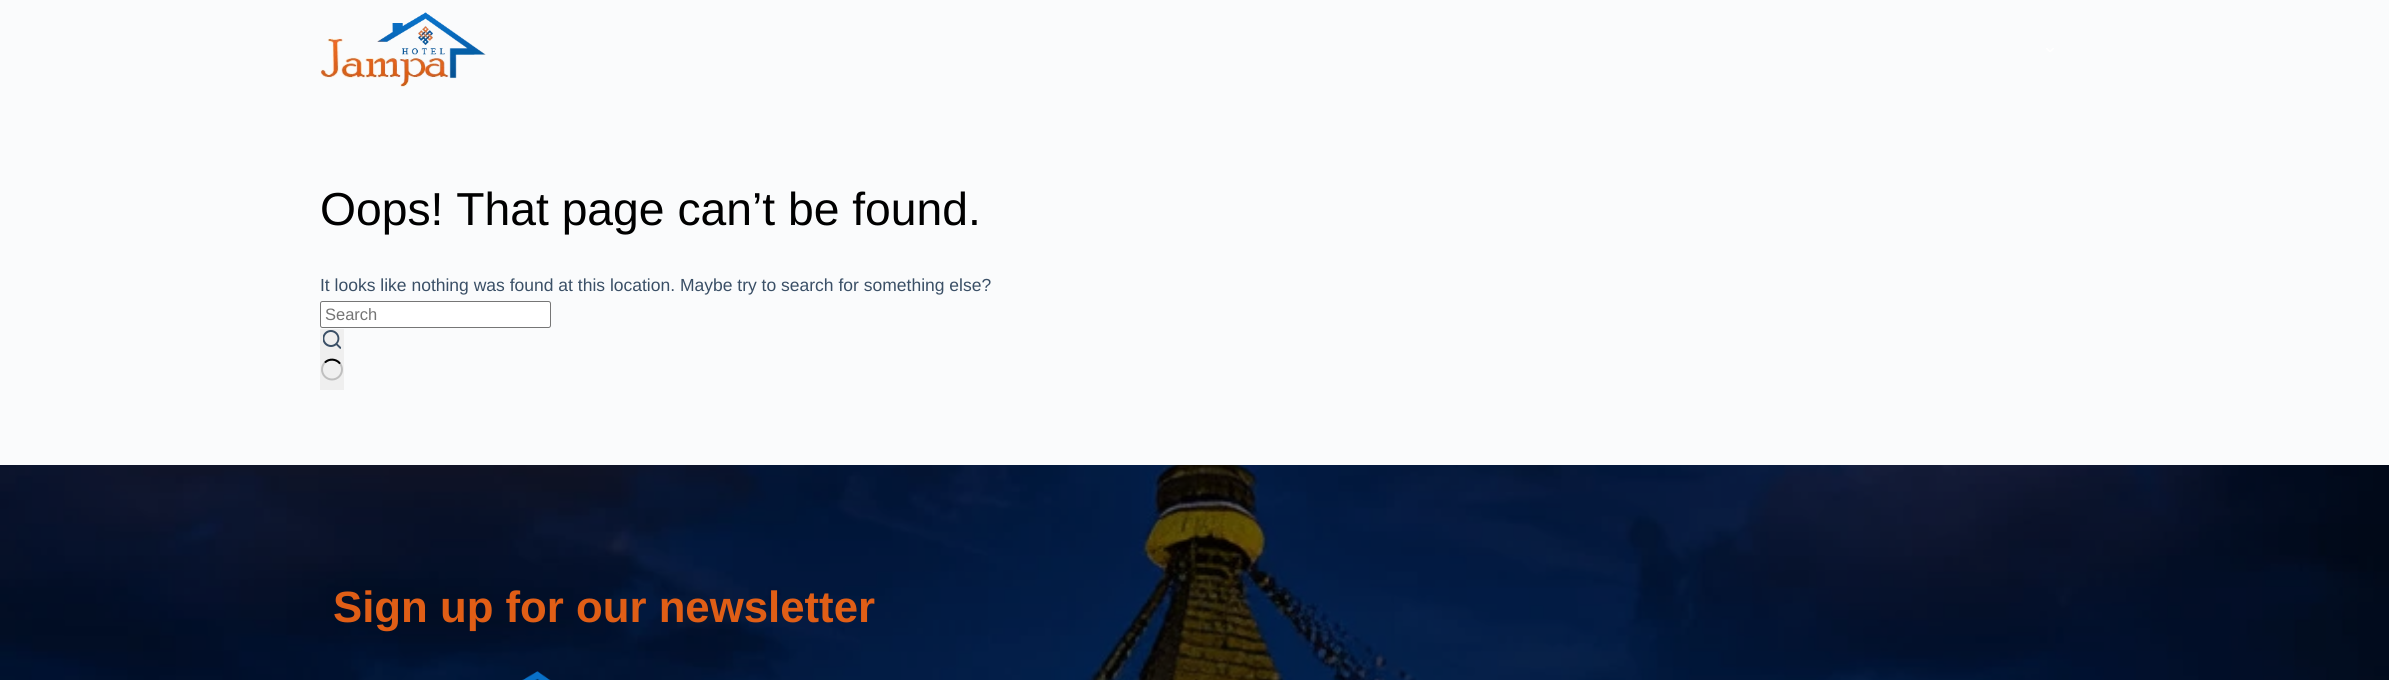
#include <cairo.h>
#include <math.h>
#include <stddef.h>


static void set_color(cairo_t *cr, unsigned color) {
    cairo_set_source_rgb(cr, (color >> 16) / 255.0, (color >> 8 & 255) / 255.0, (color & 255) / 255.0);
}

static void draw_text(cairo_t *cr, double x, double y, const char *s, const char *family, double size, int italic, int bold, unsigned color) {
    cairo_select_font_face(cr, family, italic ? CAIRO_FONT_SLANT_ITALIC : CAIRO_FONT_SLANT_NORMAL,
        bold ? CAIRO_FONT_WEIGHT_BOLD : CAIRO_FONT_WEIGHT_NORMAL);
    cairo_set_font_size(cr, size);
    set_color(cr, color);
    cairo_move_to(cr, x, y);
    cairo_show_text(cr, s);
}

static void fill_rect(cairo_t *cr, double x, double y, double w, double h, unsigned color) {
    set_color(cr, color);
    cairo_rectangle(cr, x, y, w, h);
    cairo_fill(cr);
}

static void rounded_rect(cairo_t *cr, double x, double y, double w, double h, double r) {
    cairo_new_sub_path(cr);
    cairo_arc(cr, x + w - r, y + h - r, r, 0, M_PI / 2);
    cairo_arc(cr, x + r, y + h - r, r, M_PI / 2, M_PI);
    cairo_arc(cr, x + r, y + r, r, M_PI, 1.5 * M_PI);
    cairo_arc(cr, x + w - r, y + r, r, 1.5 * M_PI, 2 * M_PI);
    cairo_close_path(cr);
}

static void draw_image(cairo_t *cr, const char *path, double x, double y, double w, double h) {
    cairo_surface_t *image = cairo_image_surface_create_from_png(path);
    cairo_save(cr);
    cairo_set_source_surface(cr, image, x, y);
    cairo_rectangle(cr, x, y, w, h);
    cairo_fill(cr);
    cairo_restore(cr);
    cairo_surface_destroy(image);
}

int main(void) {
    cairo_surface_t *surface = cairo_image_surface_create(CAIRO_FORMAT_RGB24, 2389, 680);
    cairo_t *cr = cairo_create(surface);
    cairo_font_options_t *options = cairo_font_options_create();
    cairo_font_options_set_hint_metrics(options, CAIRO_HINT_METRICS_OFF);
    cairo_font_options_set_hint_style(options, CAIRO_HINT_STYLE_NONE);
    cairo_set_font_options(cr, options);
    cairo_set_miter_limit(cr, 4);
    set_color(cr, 0xFAFBFC);
    cairo_paint(cr);
    draw_image(cr, "assets/img1.png", 320, 12, 166, 75);
    draw_image(cr, "assets/img2.png", 2046, 48, 8, 4);
    draw_text(cr, 320, 225, "Oops! That page can’t be found.", "Liberation Sans", 46.25, 0, 0, 0x000000);
    draw_text(cr, 320, 291, "It looks like nothing was found at this location. Maybe try to search for something else?", "Liberation Sans", 17.5, 0, 0, 0x3A4F66);
    set_color(cr, 0xFFFFFF);
    rounded_rect(cr, 320.5, 301.5, 230, 26, 2);
    cairo_fill_preserve(cr);
    set_color(cr, 0x767676);
    cairo_set_line_width(cr, 1);
    cairo_stroke(cr);
    draw_text(cr, 325, 320, "Search", "Liberation Sans", 16.5, 0, 0, 0x757575);
    fill_rect(cr, 320, 329, 24, 61, 0xEFEFEF);
    draw_image(cr, "assets/img3.png", 323, 330, 18, 19);
    cairo_arc(cr, 332, 369.5, 10, 0, 2 * M_PI);
    set_color(cr, 0xBFBFBF);
    cairo_set_line_width(cr, 2);
    cairo_stroke(cr);
    cairo_new_path(cr);
    cairo_move_to(cr, 325.5, 362);
    cairo_curve_to(cr, 329.5, 358.5, 336, 359, 339.5, 363);
    set_color(cr, 0x000000);
    cairo_set_line_cap(cr, CAIRO_LINE_CAP_ROUND);
    cairo_stroke(cr);
    draw_image(cr, "assets/img4.png", 0, 465, 2389, 215);
    draw_text(cr, 333, 622, "Sign up for our newsletter", "Liberation Sans", 43.75, 0, 1, 0xE05E16);
    draw_image(cr, "assets/img5.png", 522, 671, 29, 9);
    cairo_surface_write_to_png(surface, "output.png");
    cairo_font_options_destroy(options);
    cairo_destroy(cr);
    cairo_surface_destroy(surface);
    return 0;
}
